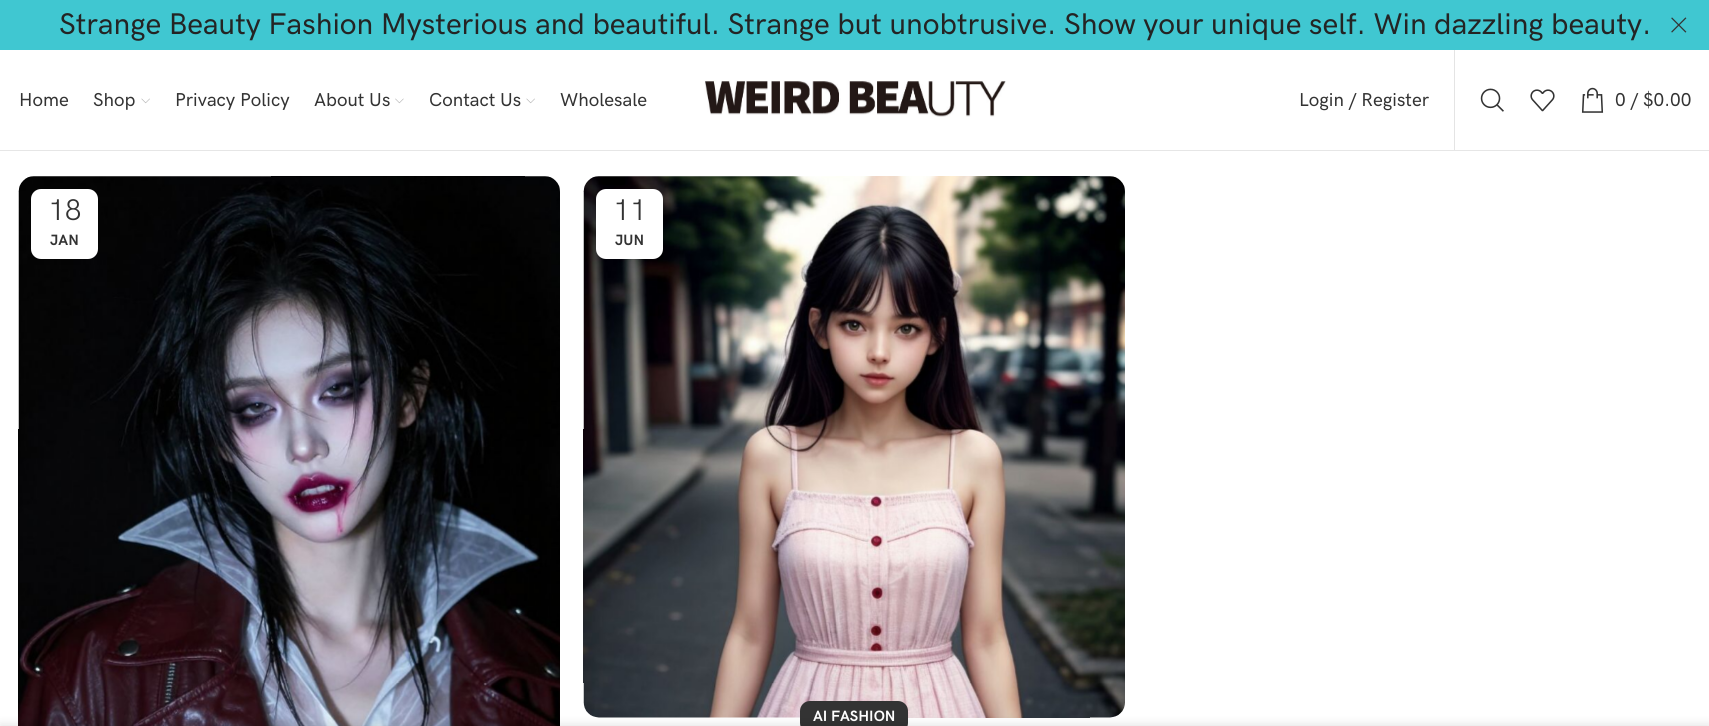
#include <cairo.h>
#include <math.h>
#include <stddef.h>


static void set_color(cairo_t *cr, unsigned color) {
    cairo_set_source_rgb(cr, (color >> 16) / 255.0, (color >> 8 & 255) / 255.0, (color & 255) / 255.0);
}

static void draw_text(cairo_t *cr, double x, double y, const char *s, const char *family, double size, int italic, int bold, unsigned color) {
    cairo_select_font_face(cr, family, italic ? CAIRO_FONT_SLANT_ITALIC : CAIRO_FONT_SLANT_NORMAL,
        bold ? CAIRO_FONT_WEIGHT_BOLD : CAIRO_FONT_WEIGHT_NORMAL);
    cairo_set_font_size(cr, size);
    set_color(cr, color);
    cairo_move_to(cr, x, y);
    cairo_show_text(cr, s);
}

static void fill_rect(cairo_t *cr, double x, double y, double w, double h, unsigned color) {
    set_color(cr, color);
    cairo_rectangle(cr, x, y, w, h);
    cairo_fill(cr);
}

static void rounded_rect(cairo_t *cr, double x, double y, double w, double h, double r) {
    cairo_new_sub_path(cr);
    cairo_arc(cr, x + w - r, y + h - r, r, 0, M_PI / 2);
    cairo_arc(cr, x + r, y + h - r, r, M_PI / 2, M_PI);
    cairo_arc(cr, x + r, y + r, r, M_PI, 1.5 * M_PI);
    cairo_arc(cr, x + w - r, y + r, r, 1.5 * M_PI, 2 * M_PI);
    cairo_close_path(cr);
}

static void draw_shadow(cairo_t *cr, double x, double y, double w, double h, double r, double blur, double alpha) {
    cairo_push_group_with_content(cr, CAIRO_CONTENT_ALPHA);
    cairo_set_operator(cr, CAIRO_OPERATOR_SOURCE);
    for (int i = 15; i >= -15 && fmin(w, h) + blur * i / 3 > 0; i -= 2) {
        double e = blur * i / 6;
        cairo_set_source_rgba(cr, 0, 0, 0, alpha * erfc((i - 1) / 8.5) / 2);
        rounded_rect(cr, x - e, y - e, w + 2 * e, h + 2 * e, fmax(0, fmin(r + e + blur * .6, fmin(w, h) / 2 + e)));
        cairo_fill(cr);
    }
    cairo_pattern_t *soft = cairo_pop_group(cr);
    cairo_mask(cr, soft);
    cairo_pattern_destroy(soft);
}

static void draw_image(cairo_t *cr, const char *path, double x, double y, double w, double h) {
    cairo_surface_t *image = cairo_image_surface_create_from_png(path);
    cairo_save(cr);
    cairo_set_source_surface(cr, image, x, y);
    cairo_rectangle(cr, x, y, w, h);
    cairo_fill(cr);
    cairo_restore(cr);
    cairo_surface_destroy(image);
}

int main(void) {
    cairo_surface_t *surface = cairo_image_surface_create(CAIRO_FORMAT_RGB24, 1709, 726);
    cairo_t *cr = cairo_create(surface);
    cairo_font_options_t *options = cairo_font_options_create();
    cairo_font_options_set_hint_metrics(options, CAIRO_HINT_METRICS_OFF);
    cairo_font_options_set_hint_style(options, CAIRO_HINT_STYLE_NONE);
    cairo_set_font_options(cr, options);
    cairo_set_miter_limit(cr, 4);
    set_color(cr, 0xFFFFFF);
    cairo_paint(cr);
    fill_rect(cr, 0, 0, 1709, 50, 0x40C7D1);
    draw_text(cr, 59, 34, "Strange Beauty Fashion Mysterious and beautiful. Strange but unobtrusive. Show your unique self. Win dazzling beauty.", "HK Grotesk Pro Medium", 30, 0, 0, 0x242424);
    draw_image(cr, "assets/img1.png", 1671, 17, 16, 16);
    cairo_new_path(cr);
    cairo_move_to(cr, 1671, 32.5);
    cairo_curve_to(cr, 1667, 28.5, 1667, 21.5, 1671, 17.5);
    set_color(cr, 0x40C7D1);
    cairo_set_line_width(cr, 1.2);
    cairo_stroke(cr);
    fill_rect(cr, 0, 150, 1709, 1, 0xE6E6E6);
    draw_text(cr, 19, 106, "Home", "HK Grotesk Pro Medium", 18.75, 0, 0, 0x333333);
    draw_text(cr, 93, 106, "Shop", "HK Grotesk Pro Medium", 18.75, 0, 0, 0x333333);
    draw_image(cr, "assets/img2.png", 141, 98, 9, 6);
    draw_text(cr, 175, 106, "Privacy Policy", "HK Grotesk Pro Medium", 18.75, 0, 0, 0x333333);
    draw_text(cr, 314, 106, "About Us", "HK Grotesk Pro Medium", 18.75, 0, 0, 0x333333);
    draw_image(cr, "assets/img3.png", 395, 98, 9, 6);
    draw_text(cr, 429, 106, "Contact Us", "HK Grotesk Pro Medium", 18.75, 0, 0, 0x333333);
    draw_image(cr, "assets/img2.png", 526, 98, 9, 6);
    draw_text(cr, 560, 106, "Wholesale", "HK Grotesk Pro Medium", 18.75, 0, 0, 0x333333);
    draw_image(cr, "assets/img4.png", 704, 80, 302, 37);
    draw_text(cr, 1299, 106, "Login / Register", "HK Grotesk Pro Medium", 18.75, 0, 0, 0x333333);
    fill_rect(cr, 1454, 50, 1, 100, 0xE4E4E4);
    draw_image(cr, "assets/img5.png", 1480, 88, 24, 24);
    draw_image(cr, "assets/img6.png", 1530, 89, 25, 23);
    draw_image(cr, "assets/img7.png", 1581, 87, 23, 26);
    draw_text(cr, 1615, 106, "0 / $0.00", "HK Grotesk Pro Medium", 18.75, 0, 0, 0x333333);
    draw_image(cr, "assets/img8.png", 18, 176, 542, 550);
    set_color(cr, 0xFFFFFF);
    rounded_rect(cr, 31, 189, 67, 70, 10);
    cairo_fill(cr);
    draw_text(cr, 48, 220, "18", "HK Grotesk Pro", 30, 0, 0, 0x333333);
    draw_text(cr, 50, 245, "JAN", "HK Grotesk Pro", 15, 0, 1, 0x333333);
    draw_image(cr, "assets/img9.png", 583, 176, 542, 542);
    set_color(cr, 0x000000);
    draw_shadow(cr, 596, 189, 67, 70, 10, 5.5, 0.1);
    set_color(cr, 0xFFFFFF);
    rounded_rect(cr, 596, 189, 67, 70, 10);
    cairo_fill(cr);
    draw_text(cr, 613, 220, "11", "HK Grotesk Pro", 30, 0, 0, 0x333333);
    draw_text(cr, 615, 245, "JUN", "HK Grotesk Pro", 15, 0, 1, 0x333333);
    rounded_rect(cr, 800, 701, 108, 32, 10);
    cairo_fill(cr);
    draw_text(cr, 813, 721, "AI FASHION", "HK Grotesk Pro", 15, 0, 1, 0xFFFFFF);
    set_color(cr, 0x000000);
    draw_shadow(cr, 0, 726, 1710, 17, 0, 5.5, 0.14);
    cairo_surface_write_to_png(surface, "output.png");
    cairo_font_options_destroy(options);
    cairo_destroy(cr);
    cairo_surface_destroy(surface);
    return 0;
}
